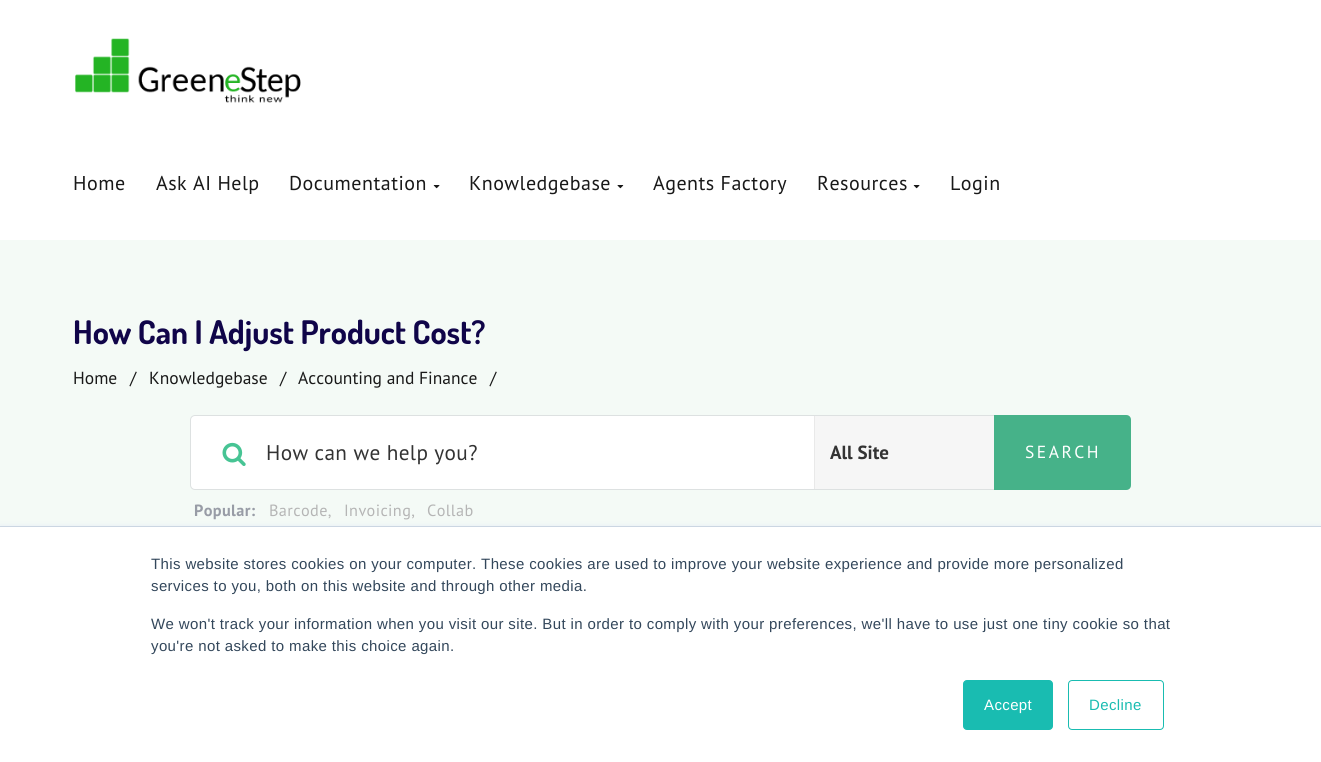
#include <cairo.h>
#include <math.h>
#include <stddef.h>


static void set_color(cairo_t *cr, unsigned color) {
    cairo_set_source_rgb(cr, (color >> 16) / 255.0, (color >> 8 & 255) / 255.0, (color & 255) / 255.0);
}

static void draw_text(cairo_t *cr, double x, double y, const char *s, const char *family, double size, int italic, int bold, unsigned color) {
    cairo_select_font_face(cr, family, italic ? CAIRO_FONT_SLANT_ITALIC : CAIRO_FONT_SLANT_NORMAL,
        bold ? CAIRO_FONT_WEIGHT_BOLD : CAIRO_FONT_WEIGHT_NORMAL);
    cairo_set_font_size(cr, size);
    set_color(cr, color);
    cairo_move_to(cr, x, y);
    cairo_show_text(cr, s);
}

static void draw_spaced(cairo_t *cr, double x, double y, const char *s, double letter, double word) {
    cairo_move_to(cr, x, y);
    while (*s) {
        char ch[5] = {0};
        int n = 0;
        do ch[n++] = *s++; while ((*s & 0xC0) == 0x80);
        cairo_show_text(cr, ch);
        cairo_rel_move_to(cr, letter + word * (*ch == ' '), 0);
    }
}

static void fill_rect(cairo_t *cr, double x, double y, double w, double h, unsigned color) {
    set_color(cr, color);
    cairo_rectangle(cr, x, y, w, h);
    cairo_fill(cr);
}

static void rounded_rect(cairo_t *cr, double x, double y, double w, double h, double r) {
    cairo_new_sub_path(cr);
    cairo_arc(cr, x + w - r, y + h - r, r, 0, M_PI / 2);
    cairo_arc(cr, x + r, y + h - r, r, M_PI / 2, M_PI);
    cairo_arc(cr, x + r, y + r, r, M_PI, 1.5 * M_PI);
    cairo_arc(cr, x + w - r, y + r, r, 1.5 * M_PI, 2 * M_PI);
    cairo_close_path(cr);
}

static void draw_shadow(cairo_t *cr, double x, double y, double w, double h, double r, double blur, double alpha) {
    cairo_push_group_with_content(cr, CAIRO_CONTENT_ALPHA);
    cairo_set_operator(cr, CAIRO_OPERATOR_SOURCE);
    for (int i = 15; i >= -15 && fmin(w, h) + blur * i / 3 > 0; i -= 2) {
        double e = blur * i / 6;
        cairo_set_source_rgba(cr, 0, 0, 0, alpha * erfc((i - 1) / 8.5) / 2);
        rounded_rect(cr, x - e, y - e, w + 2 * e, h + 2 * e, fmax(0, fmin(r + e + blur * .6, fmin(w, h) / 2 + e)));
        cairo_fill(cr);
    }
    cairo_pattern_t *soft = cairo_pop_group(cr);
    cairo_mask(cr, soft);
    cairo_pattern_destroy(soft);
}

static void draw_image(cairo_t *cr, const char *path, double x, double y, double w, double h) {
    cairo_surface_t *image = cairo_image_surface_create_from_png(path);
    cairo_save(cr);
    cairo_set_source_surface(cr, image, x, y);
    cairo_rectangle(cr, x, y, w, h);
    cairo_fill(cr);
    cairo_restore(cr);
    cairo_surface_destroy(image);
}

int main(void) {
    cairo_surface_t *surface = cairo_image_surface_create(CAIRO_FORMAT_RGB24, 1321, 762);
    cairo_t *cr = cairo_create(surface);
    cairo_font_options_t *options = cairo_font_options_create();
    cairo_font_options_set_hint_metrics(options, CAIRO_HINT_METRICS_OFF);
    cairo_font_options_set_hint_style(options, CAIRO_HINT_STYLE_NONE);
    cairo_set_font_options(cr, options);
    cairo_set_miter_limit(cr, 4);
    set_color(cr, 0xFFFFFF);
    cairo_paint(cr);
    draw_image(cr, "assets/img1.png", 75, 38, 226, 65);
    cairo_select_font_face(cr, "PT Sans", CAIRO_FONT_SLANT_NORMAL, CAIRO_FONT_WEIGHT_NORMAL);
    cairo_set_font_size(cr, 20);
    set_color(cr, 0x191919);
    draw_spaced(cr, 73, 190, "Home", 0.5, 0);
    draw_spaced(cr, 156, 190, "Ask AI Help", 0.5, 0);
    draw_spaced(cr, 289, 190, "Documentation", 0.5, 0);
    draw_image(cr, "assets/img2.png", 433, 185, 7, 4);
    draw_spaced(cr, 469, 190, "Knowledgebase", 0.5, 0);
    draw_image(cr, "assets/img3.png", 617, 185, 7, 4);
    draw_spaced(cr, 653, 190, "Agents Factory", 0.5, 0);
    draw_spaced(cr, 817, 190, "Resources", 0.5, 0);
    draw_image(cr, "assets/img2.png", 913, 185, 7, 4);
    draw_spaced(cr, 950, 190, "Login", 0.5, 0);
    fill_rect(cr, 0, 240, 1321, 286, 0xF4FAF6);
    draw_text(cr, 73, 344, "How Can I Adjust Product Cost?", "Dosis", 32.5, 0, 1, 0x100549);
    draw_text(cr, 73, 384, "Home", "PT Sans", 17.5, 0, 0, 0x191919);
    draw_text(cr, 130, 384, "/", "PT Sans", 17.5, 0, 0, 0x191919);
    draw_text(cr, 149, 384, "Knowledgebase", "PT Sans", 17.5, 0, 0, 0x191919);
    draw_text(cr, 280, 384, "/", "PT Sans", 17.5, 0, 0, 0x191919);
    draw_text(cr, 298, 384, "Accounting and Finance", "PT Sans", 17.5, 0, 0, 0x191919);
    draw_text(cr, 490, 384, "/", "PT Sans", 17.5, 0, 0, 0x191919);
    set_color(cr, 0xFFFFFF);
    rounded_rect(cr, 190.5, 415.5, 940, 74, 4.5);
    cairo_fill_preserve(cr);
    set_color(cr, 0xDDE1E1);
    cairo_set_line_width(cr, 1);
    cairo_stroke(cr);
    draw_image(cr, "assets/img4.png", 222, 442, 24, 24);
    cairo_set_font_size(cr, 21.25);
    set_color(cr, 0x333333);
    draw_spaced(cr, 266, 460, "How can we help you?", 0.38, 0);
    fill_rect(cr, 815, 416, 179, 73, 0xF6F6F6);
    fill_rect(cr, 814, 416, 1, 73, 0xE9E9E9);
    draw_text(cr, 830, 459, "All Site", "PT Sans", 19, 0, 1, 0x333333);
    set_color(cr, 0x46B289);
    cairo_new_path(cr);
    cairo_move_to(cr, 994, 415);
    cairo_line_to(cr, 1126, 415);
    cairo_curve_to(cr, 1129, 415, 1131, 417, 1131, 420);
    cairo_line_to(cr, 1131, 485);
    cairo_curve_to(cr, 1131, 488, 1129, 490, 1126, 490);
    cairo_line_to(cr, 994, 490);
    cairo_close_path(cr);
    cairo_fill(cr);
    cairo_select_font_face(cr, "PT Sans", CAIRO_FONT_SLANT_NORMAL, CAIRO_FONT_WEIGHT_NORMAL);
    cairo_set_font_size(cr, 17.5);
    set_color(cr, 0xFFFFFF);
    draw_spaced(cr, 1025, 458, "SEARCH", 2.5, 0);
    cairo_select_font_face(cr, "PT Sans", CAIRO_FONT_SLANT_NORMAL, CAIRO_FONT_WEIGHT_BOLD);
    cairo_set_font_size(cr, 16.25);
    set_color(cr, 0x989CA6);
    draw_spaced(cr, 194, 516, "Popular:", 0.38, 0);
    cairo_select_font_face(cr, "PT Sans", CAIRO_FONT_SLANT_NORMAL, CAIRO_FONT_WEIGHT_NORMAL);
    set_color(cr, 0xB5B5B5);
    draw_spaced(cr, 269, 516, "Barcode,", 0.38, 0);
    draw_spaced(cr, 344, 516, "Invoicing,", 0.38, 0);
    draw_spaced(cr, 427, 516, "Collab", 0.38, 0);
    set_color(cr, 0xEAF0F6);
    draw_shadow(cr, 0, 525, 1321, 236, 0, 2, 1);
    fill_rect(cr, 0, 527, 1321, 235, 0xFFFFFF);
    fill_rect(cr, 0, 526, 1321, 1, 0xCBD6E2);
    cairo_select_font_face(cr, "Liberation Sans", CAIRO_FONT_SLANT_NORMAL, CAIRO_FONT_WEIGHT_NORMAL);
    cairo_set_font_size(cr, 15);
    set_color(cr, 0x33475B);
    draw_spaced(cr, 151, 569, "This website stores cookies on your computer. These cookies are used to improve your website experience and provide more personalized", 0.38, 0);
    draw_spaced(cr, 151, 591, "services to you, both on this website and through other media.", 0.38, 0);
    draw_spaced(cr, 151, 629, "We won't track your information when you visit our site. But in order to comply with your preferences, we'll have to use just one tiny cookie so that", 0.38, 0);
    draw_spaced(cr, 151, 651, "you're not asked to make this choice again.", 0.38, 0);
    set_color(cr, 0x19BCB1);
    rounded_rect(cr, 963.5, 680.5, 89, 49, 3.5);
    cairo_fill_preserve(cr);
    cairo_stroke(cr);
    set_color(cr, 0xFFFFFF);
    draw_spaced(cr, 984, 710, "Accept", 0.38, 0);
    rounded_rect(cr, 1068.5, 680.5, 95, 49, 3.5);
    set_color(cr, 0x19BCB1);
    cairo_stroke(cr);
    draw_spaced(cr, 1089, 710, "Decline", 0.38, 0);
    cairo_surface_write_to_png(surface, "output.png");
    cairo_font_options_destroy(options);
    cairo_destroy(cr);
    cairo_surface_destroy(surface);
    return 0;
}
